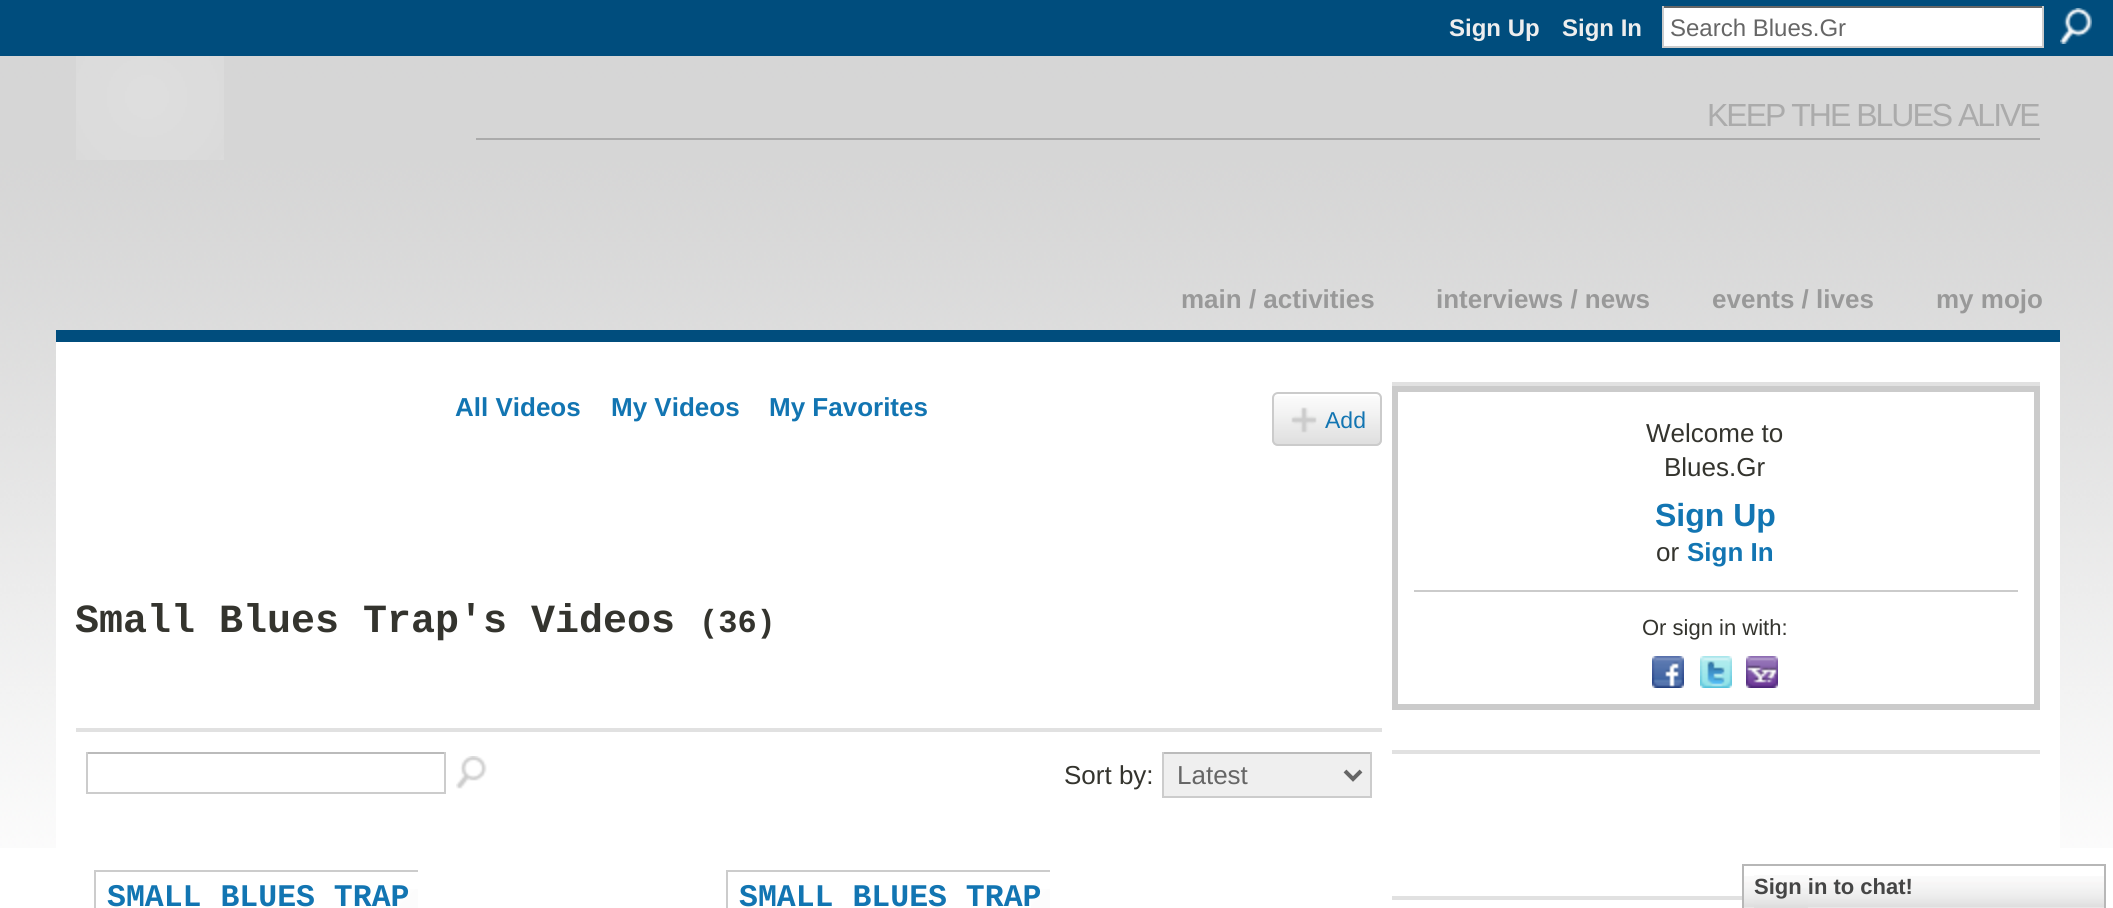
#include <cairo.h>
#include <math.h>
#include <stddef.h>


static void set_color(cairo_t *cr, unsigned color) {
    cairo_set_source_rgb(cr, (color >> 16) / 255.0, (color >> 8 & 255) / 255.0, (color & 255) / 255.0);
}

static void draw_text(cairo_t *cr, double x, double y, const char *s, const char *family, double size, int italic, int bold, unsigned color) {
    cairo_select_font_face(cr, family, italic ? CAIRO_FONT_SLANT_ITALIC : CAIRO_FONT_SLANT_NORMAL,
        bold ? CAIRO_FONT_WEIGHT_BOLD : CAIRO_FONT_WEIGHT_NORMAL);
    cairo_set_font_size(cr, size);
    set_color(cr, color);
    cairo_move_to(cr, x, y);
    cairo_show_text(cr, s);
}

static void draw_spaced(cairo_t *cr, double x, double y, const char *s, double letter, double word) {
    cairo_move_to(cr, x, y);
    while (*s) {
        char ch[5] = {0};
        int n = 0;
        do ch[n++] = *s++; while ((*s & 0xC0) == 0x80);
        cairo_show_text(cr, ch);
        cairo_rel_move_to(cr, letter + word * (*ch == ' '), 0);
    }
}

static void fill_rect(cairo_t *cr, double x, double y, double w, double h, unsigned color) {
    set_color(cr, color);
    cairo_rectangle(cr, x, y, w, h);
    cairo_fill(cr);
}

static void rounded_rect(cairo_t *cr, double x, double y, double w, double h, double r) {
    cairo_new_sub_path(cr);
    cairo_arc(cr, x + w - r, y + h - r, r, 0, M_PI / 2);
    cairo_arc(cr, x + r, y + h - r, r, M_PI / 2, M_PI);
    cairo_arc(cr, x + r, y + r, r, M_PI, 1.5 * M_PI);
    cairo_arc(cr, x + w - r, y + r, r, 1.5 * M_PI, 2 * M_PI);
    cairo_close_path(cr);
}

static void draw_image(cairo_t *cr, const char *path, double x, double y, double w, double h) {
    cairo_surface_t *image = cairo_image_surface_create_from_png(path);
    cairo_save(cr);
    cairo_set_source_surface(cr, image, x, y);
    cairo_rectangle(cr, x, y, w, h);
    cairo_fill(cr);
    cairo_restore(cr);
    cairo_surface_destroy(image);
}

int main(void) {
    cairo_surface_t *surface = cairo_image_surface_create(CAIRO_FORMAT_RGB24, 2113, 908);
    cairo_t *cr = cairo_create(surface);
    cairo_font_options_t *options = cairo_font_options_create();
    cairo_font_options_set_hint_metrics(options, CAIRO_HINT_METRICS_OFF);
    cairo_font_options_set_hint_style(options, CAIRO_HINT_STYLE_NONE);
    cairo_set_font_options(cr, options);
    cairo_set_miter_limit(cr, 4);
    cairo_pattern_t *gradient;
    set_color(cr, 0xFFFFFF);
    cairo_paint(cr);
    draw_image(cr, "assets/img1.png", 0, 56, 2113, 792);
    fill_rect(cr, 0, 0, 2113, 56, 0x004D7D);
    draw_text(cr, 1449, 36, "Sign Up", "Liberation Sans", 24, 0, 1, 0xEEEEEE);
    draw_text(cr, 1562, 36, "Sign In", "Liberation Sans", 24, 0, 1, 0xEEEEEE);
    fill_rect(cr, 1664, 8, 378, 38, 0xFFFFFF);
    fill_rect(cr, 1662, 6, 382, 2, 0x666666);
    fill_rect(cr, 2042, 6, 2, 42, 0xCCCCCC);
    fill_rect(cr, 1662, 46, 382, 2, 0xCCCCCC);
    fill_rect(cr, 1662, 6, 2, 42, 0xCCCCCC);
    draw_text(cr, 1670, 36, "Search Blues.Gr", "Liberation Sans", 24, 0, 0, 0x666666);
    draw_image(cr, "assets/img2.png", 2060, 8, 32, 36);
    draw_image(cr, "assets/img3.png", 76, 56, 148, 104);
    fill_rect(cr, 476, 138, 1564, 2, 0xABABAB);
    cairo_set_font_size(cr, 32);
    draw_spaced(cr, 1707, 126, "KEEP THE BLUES ALIVE", -2, 0);
    draw_text(cr, 1181, 308, "main / activities", "Liberation Sans", 26, 0, 1, 0x999999);
    draw_text(cr, 1436, 308, "interviews / news", "Liberation Sans", 26, 0, 1, 0x999999);
    draw_text(cr, 1712, 308, "events / lives", "Liberation Sans", 26, 0, 1, 0x999999);
    draw_text(cr, 1936, 308, "my mojo", "Liberation Sans", 26, 0, 1, 0x999999);
    fill_rect(cr, 56, 342, 2004, 506, 0xFFFFFF);
    fill_rect(cr, 56, 330, 2004, 12, 0x004D7D);
    draw_text(cr, 455, 416, "All Videos", "Liberation Sans", 26, 0, 1, 0x1275B2);
    draw_text(cr, 611, 416, "My Videos", "Liberation Sans", 26, 0, 1, 0x1275B2);
    draw_text(cr, 769, 416, "My Favorites", "Liberation Sans", 26, 0, 1, 0x1275B2);
    draw_image(cr, "assets/img4.png", 1272, 396, 110, 50);
    rounded_rect(cr, 1273, 393, 108, 52, 5);
    set_color(cr, 0xCBCBCB);
    cairo_stroke(cr);
    draw_image(cr, "assets/img5.png", 1291, 407, 26, 26);
    draw_text(cr, 1325, 428, "Add", "Liberation Sans", 23, 0, 0, 0x1275B2);
    draw_text(cr, 75, 632, "Small Blues Trap's Videos", "Liberation Mono", 40, 0, 1, 0x34342E);
    draw_text(cr, 699, 632, "(36)", "Liberation Mono", 32, 0, 1, 0x34342E);
    fill_rect(cr, 76, 728, 1306, 4, 0xE1E1E1);
    fill_rect(cr, 86, 752, 360, 2, 0xBBBBBB);
    fill_rect(cr, 444, 752, 2, 42, 0xCCCCCC);
    fill_rect(cr, 86, 792, 360, 2, 0xCCCCCC);
    fill_rect(cr, 86, 752, 2, 42, 0xCCCCCC);
    draw_image(cr, "assets/img6.png", 456, 756, 31, 33);
    draw_text(cr, 1064, 784, "Sort by:", "Liberation Sans", 26, 0, 0, 0x34342E);
    fill_rect(cr, 1164, 754, 206, 42, 0xEFEFEF);
    fill_rect(cr, 1162, 752, 210, 2, 0xBBBBBB);
    fill_rect(cr, 1370, 752, 2, 46, 0xCCCCCC);
    fill_rect(cr, 1162, 796, 210, 2, 0xCCCCCC);
    fill_rect(cr, 1162, 752, 2, 46, 0xCCCCCC);
    cairo_new_path(cr);
    cairo_move_to(cr, 1345, 771);
    cairo_line_to(cr, 1353, 779);
    cairo_line_to(cr, 1361, 771);
    set_color(cr, 0x666666);
    cairo_set_line_width(cr, 4);
    cairo_stroke(cr);
    draw_text(cr, 1177, 784, "Latest", "Liberation Sans", 26, 0, 0, 0x666666);
    gradient = cairo_pattern_create_linear(145, 824, 370, 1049);
    cairo_pattern_add_color_stop_rgba(gradient, 0.5, 1, 1, 1, 1);
    cairo_pattern_add_color_stop_rgba(gradient, 1, 0.98, 0.98, 0.98, 1);
    cairo_set_source(cr, gradient);
    cairo_pattern_destroy(gradient);
    cairo_rectangle(cr, 399, 889, 19, 19);
    cairo_fill(cr);
    fill_rect(cr, 94, 870, 324, 2, 0xCCCCCC);
    fill_rect(cr, 94, 870, 2, 38, 0xCCCCCC);
    draw_text(cr, 107, 906, "SMALL BLUES TRAP", "Liberation Mono", 31.5, 0, 1, 0x1275B2);
    gradient = cairo_pattern_create_linear(777, 824, 1002, 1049);
    cairo_pattern_add_color_stop_rgba(gradient, 0.5, 1, 1, 1, 1);
    cairo_pattern_add_color_stop_rgba(gradient, 1, 0.98, 0.98, 0.98, 1);
    cairo_set_source(cr, gradient);
    cairo_pattern_destroy(gradient);
    cairo_rectangle(cr, 1031, 889, 19, 19);
    cairo_fill(cr);
    fill_rect(cr, 726, 870, 324, 2, 0xCCCCCC);
    fill_rect(cr, 726, 870, 2, 38, 0xCCCCCC);
    draw_text(cr, 739, 906, "SMALL BLUES TRAP", "Liberation Mono", 31.5, 0, 1, 0x1275B2);
    fill_rect(cr, 1392, 382, 648, 4, 0xE1E1E1);
    cairo_rectangle(cr, 1395, 389, 642, 318);
    set_color(cr, 0xCBCBCB);
    cairo_set_line_width(cr, 6);
    cairo_stroke(cr);
    draw_text(cr, 1646, 442, "Welcome to", "Liberation Sans", 26, 0, 0, 0x34342E);
    draw_text(cr, 1664, 476, "Blues.Gr", "Liberation Sans", 26, 0, 0, 0x34342E);
    draw_text(cr, 1655, 526, "Sign Up", "Liberation Sans", 32, 0, 1, 0x1275B2);
    draw_text(cr, 1656, 561, "or", "Liberation Sans", 26, 0, 0, 0x34342E);
    draw_text(cr, 1687, 561, "Sign In", "Liberation Sans", 26, 0, 1, 0x1275B2);
    fill_rect(cr, 1414, 590, 604, 2, 0xCBCBCB);
    draw_text(cr, 1642, 635, "Or sign in with:", "Liberation Sans", 22, 0, 0, 0x34342E);
    draw_image(cr, "assets/img7.png", 1652, 656, 32, 32);
    draw_image(cr, "assets/img8.png", 1700, 656, 32, 32);
    draw_image(cr, "assets/img9.png", 1746, 656, 32, 32);
    fill_rect(cr, 1392, 750, 648, 4, 0xE1E1E1);
    fill_rect(cr, 1392, 896, 350, 4, 0xE1E1E1);
    draw_image(cr, "assets/img10.png", 1744, 876, 360, 32);
    cairo_rectangle(cr, 1743, 865, 362, 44);
    set_color(cr, 0xB7B7B7);
    cairo_set_line_width(cr, 2);
    cairo_stroke(cr);
    draw_image(cr, "assets/img11.png", 1754, 875, 54, 33);
    draw_text(cr, 1754, 894, "Sign in to chat!", "Liberation Sans", 22, 0, 1, 0x454545);
    cairo_surface_write_to_png(surface, "output.png");
    cairo_font_options_destroy(options);
    cairo_destroy(cr);
    cairo_surface_destroy(surface);
    return 0;
}
